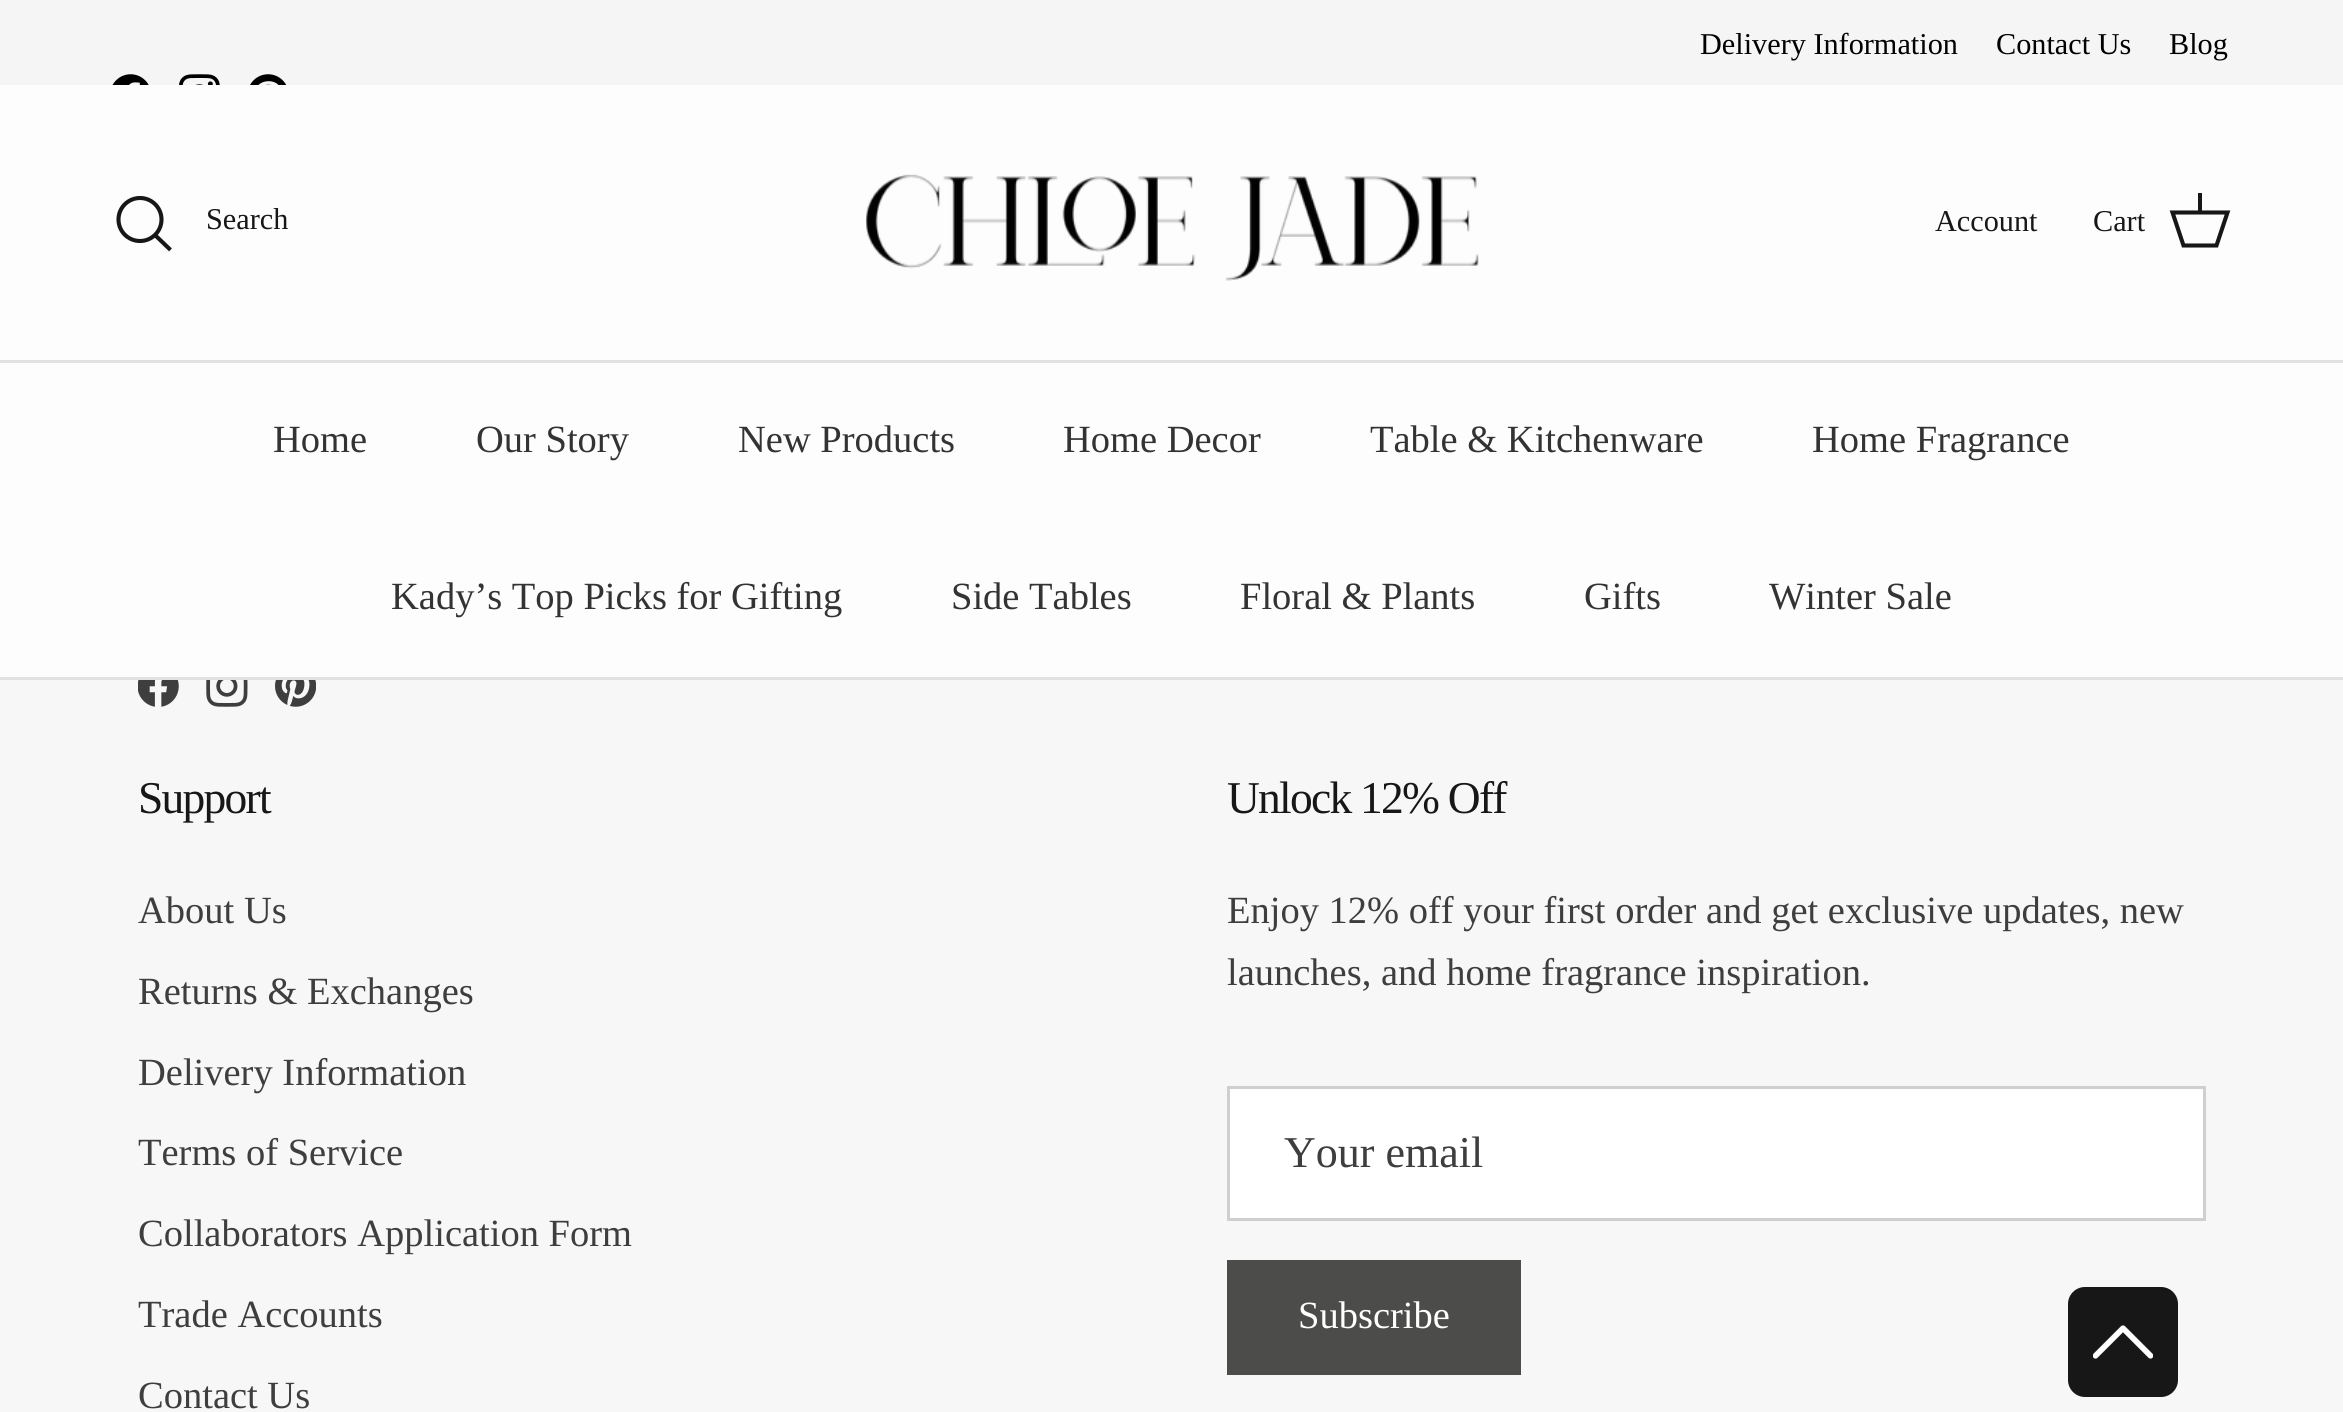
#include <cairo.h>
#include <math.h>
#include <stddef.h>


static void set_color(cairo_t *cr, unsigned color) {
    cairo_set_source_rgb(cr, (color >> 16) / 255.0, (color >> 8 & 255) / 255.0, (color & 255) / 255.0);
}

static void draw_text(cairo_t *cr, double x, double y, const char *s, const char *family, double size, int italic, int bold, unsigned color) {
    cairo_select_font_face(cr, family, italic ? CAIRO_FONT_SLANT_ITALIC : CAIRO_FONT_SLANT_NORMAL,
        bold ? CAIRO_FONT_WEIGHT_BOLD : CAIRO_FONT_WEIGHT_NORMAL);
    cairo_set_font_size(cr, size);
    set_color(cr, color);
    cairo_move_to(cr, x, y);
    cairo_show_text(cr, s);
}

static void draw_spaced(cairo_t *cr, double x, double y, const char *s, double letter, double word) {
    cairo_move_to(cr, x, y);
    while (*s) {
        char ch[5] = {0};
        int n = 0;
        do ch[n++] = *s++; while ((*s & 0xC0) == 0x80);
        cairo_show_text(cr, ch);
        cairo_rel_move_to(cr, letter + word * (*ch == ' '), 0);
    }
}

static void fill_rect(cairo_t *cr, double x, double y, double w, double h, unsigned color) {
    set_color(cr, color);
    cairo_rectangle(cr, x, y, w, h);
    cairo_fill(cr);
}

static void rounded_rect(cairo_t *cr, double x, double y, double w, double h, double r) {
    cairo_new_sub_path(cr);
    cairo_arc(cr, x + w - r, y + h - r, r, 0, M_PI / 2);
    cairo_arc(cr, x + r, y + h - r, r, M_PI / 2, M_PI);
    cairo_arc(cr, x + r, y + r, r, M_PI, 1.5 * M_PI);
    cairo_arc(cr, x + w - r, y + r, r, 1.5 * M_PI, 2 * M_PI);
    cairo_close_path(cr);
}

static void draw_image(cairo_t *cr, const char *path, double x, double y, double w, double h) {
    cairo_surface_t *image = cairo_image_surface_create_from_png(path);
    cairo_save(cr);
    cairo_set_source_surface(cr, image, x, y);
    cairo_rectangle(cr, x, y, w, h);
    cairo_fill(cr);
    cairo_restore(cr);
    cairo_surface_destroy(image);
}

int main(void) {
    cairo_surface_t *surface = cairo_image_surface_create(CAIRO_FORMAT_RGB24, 2343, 1412);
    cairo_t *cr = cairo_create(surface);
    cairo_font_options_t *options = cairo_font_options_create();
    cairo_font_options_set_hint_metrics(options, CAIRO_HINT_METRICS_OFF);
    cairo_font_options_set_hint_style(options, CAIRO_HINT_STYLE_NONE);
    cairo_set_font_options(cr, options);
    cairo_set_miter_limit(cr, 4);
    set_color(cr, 0xF7F7F8);
    cairo_paint(cr);
    fill_rect(cr, 0, 0, 2343, 85, 0xF5F5F5);
    draw_text(cr, 1700, 54, "Delivery Information", "Liberation Serif", 30.25, 0, 0, 0x000000);
    draw_text(cr, 1996, 54, "Contact Us", "Liberation Serif", 30.25, 0, 0, 0x000000);
    draw_text(cr, 2169, 54, "Blog", "Liberation Serif", 30.25, 0, 0, 0x000000);
    draw_image(cr, "assets/img1.png", 112, 74, 37, 11);
    draw_image(cr, "assets/img2.png", 179, 74, 41, 11);
    draw_image(cr, "assets/img3.png", 250, 74, 37, 11);
    fill_rect(cr, 0, 85, 2343, 275, 0xFDFDFD);
    fill_rect(cr, 0, 360, 2343, 3, 0xE2E2E2);
    cairo_arc(cr, 140, 219.5, 21.5, 0, 2 * M_PI);
    set_color(cr, 0x171717);
    cairo_set_line_width(cr, 4.1);
    cairo_stroke(cr);
    draw_text(cr, 206, 229, "Search", "Liberation Serif", 30.25, 0, 0, 0x171717);
    cairo_new_path(cr);
    cairo_move_to(cr, 156.5, 236.5);
    cairo_line_to(cr, 169, 248.5);
    cairo_set_line_cap(cr, CAIRO_LINE_CAP_SQUARE);
    cairo_stroke(cr);
    draw_image(cr, "assets/img4.png", 865, 174, 614, 107);
    draw_text(cr, 1935, 231, "Account", "Liberation Serif", 30.25, 0, 0, 0x171717);
    draw_text(cr, 2093, 231, "Cart", "Liberation Serif", 30.25, 0, 0, 0x171717);
    cairo_new_path(cr);
    cairo_move_to(cr, 2172.5, 212.5);
    cairo_line_to(cr, 2227.5, 212.5);
    cairo_line_to(cr, 2216.5, 245.5);
    cairo_line_to(cr, 2183.5, 245.5);
    cairo_close_path(cr);
    cairo_set_line_cap(cr, CAIRO_LINE_CAP_BUTT);
    cairo_stroke(cr);
    fill_rect(cr, 2198, 193, 4, 21, 0x171717);
    fill_rect(cr, 0, 677, 2343, 3, 0xE2E2E2);
    fill_rect(cr, 0, 363, 2343, 314, 0xFDFDFD);
    draw_text(cr, 273, 452, "Home", "Liberation Serif", 38.5, 0, 0, 0x333333);
    draw_text(cr, 476, 452, "Our Story", "Liberation Serif", 38.5, 0, 0, 0x333333);
    draw_text(cr, 738, 452, "New Products", "Liberation Serif", 38.5, 0, 0, 0x333333);
    draw_text(cr, 1063, 452, "Home Decor", "Liberation Serif", 38.5, 0, 0, 0x333333);
    draw_text(cr, 1370, 452, "Table & Kitchenware", "Liberation Serif", 38.5, 0, 0, 0x333333);
    draw_text(cr, 1812, 452, "Home Fragrance", "Liberation Serif", 38.5, 0, 0, 0x333333);
    draw_text(cr, 391, 609, "Kady’s Top Picks for Gifting", "Liberation Serif", 38.5, 0, 0, 0x333333);
    draw_text(cr, 951, 609, "Side Tables", "Liberation Serif", 38.5, 0, 0, 0x333333);
    draw_text(cr, 1240, 609, "Floral & Plants", "Liberation Serif", 38.5, 0, 0, 0x333333);
    draw_text(cr, 1584, 609, "Gifts", "Liberation Serif", 38.5, 0, 0, 0x333333);
    draw_text(cr, 1769, 609, "Winter Sale", "Liberation Serif", 38.5, 0, 0, 0x333333);
    draw_image(cr, "assets/img5.png", 138, 680, 41, 27);
    draw_image(cr, "assets/img6.png", 206, 680, 42, 27);
    draw_image(cr, "assets/img7.png", 275, 680, 41, 27);
    cairo_set_font_size(cr, 45.5);
    set_color(cr, 0x171717);
    draw_spaced(cr, 138, 813, "Support", -1.75, 0);
    draw_text(cr, 138, 923, "About Us", "Liberation Serif", 38.5, 0, 0, 0x3E3E3E);
    draw_text(cr, 138, 1004, "Returns & Exchanges", "Liberation Serif", 38.5, 0, 0, 0x3E3E3E);
    draw_text(cr, 138, 1085, "Delivery Information", "Liberation Serif", 38.5, 0, 0, 0x3E3E3E);
    draw_text(cr, 138, 1165, "Terms of Service", "Liberation Serif", 38.5, 0, 0, 0x3E3E3E);
    draw_text(cr, 138, 1246, "Collaborators Application Form", "Liberation Serif", 38.5, 0, 0, 0x3E3E3E);
    draw_text(cr, 138, 1327, "Trade Accounts", "Liberation Serif", 38.5, 0, 0, 0x3E3E3E);
    draw_text(cr, 138, 1408, "Contact Us", "Liberation Serif", 38.5, 0, 0, 0x3E3E3E);
    cairo_set_font_size(cr, 45.5);
    set_color(cr, 0x171717);
    draw_spaced(cr, 1227, 813, "Unlock 12% Off", -1.75, 0);
    draw_text(cr, 1227, 923, "Enjoy 12% off your first order and get exclusive updates, new", "Liberation Serif", 38.5, 0, 0, 0x3E3E3E);
    draw_text(cr, 1227, 985, "launches, and home fragrance inspiration.", "Liberation Serif", 38.5, 0, 0, 0x3E3E3E);
    set_color(cr, 0xFFFFFF);
    cairo_rectangle(cr, 1228.5, 1087.5, 976, 132);
    cairo_fill_preserve(cr);
    set_color(cr, 0xCFCFCF);
    cairo_set_line_width(cr, 3);
    cairo_stroke(cr);
    draw_text(cr, 1284, 1167, "Your email", "Liberation Serif", 44, 0, 0, 0x3E3E3E);
    fill_rect(cr, 1227, 1260, 294, 115, 0x4C4C4B);
    draw_text(cr, 1298, 1328, "Subscribe", "Liberation Serif", 38.5, 0, 0, 0xFFFFFF);
    set_color(cr, 0x171717);
    rounded_rect(cr, 2068, 1287, 110, 110, 17);
    cairo_fill(cr);
    draw_image(cr, "assets/img8.png", 2093, 1325, 60, 34);
    cairo_surface_write_to_png(surface, "output.png");
    cairo_font_options_destroy(options);
    cairo_destroy(cr);
    cairo_surface_destroy(surface);
    return 0;
}
